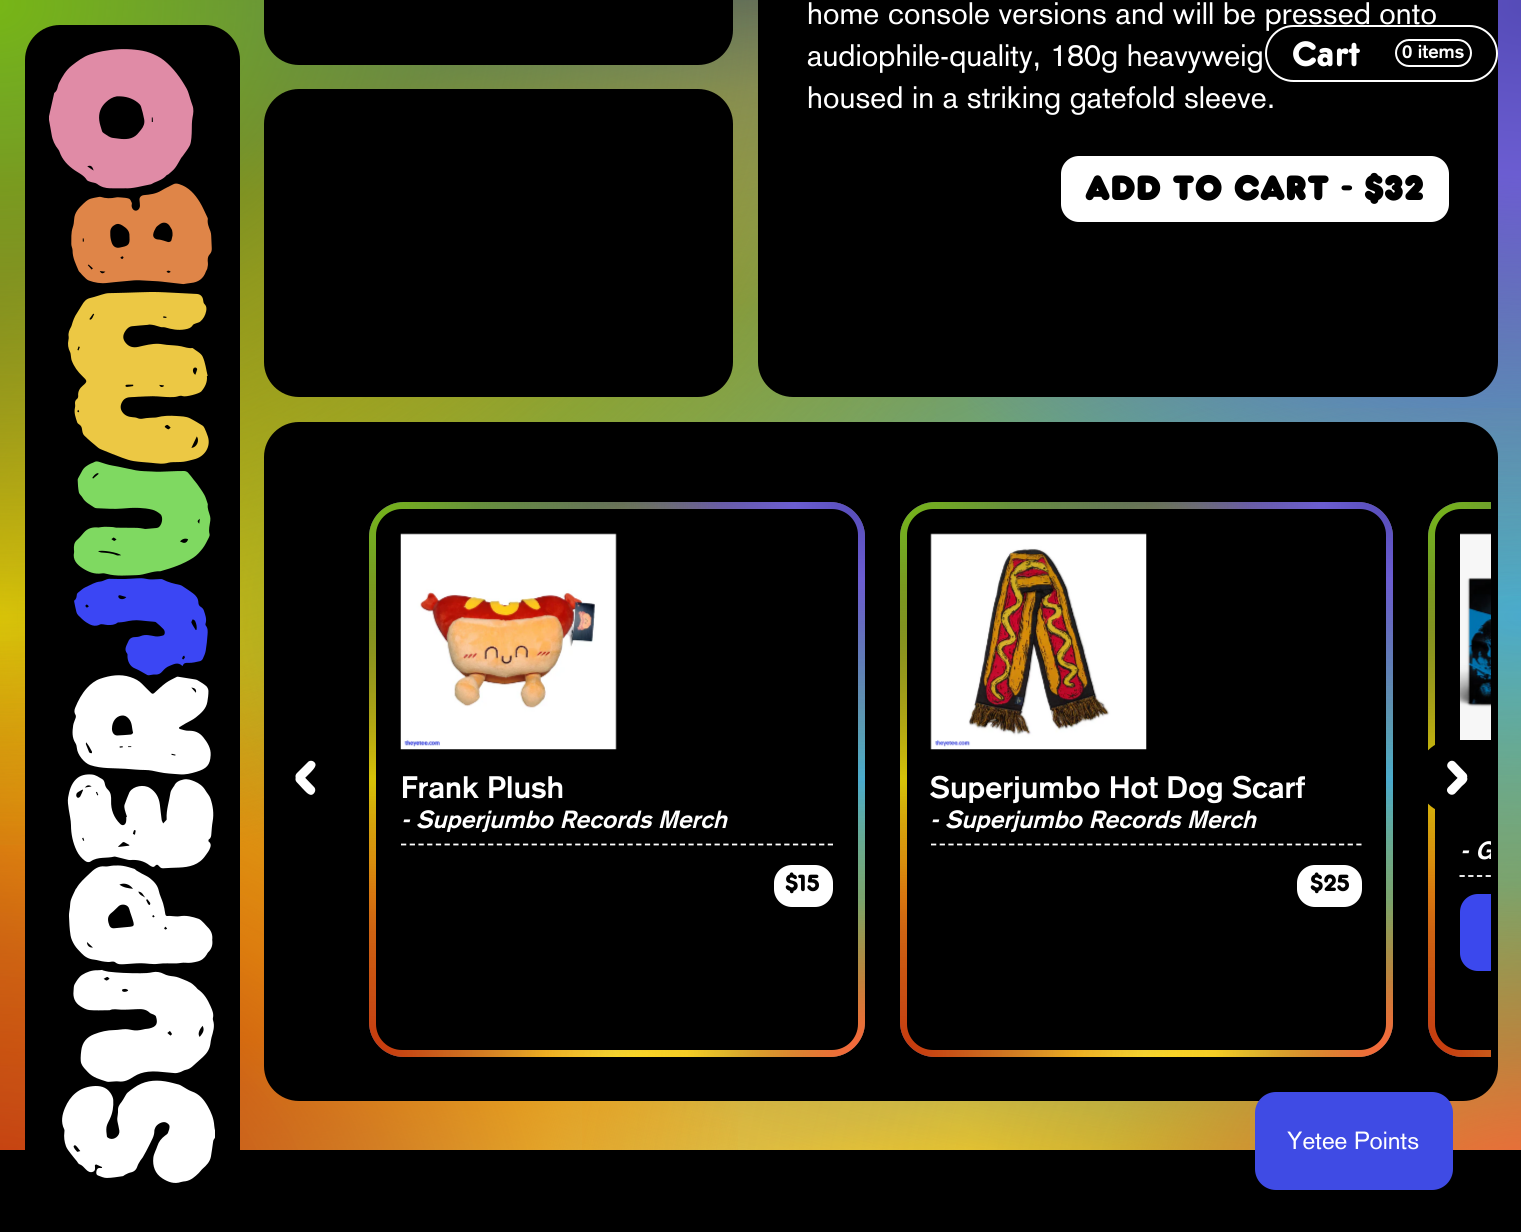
#include <cairo.h>
#include <math.h>
#include <stddef.h>


static void set_color(cairo_t *cr, unsigned color) {
    cairo_set_source_rgb(cr, (color >> 16) / 255.0, (color >> 8 & 255) / 255.0, (color & 255) / 255.0);
}

static void draw_text(cairo_t *cr, double x, double y, const char *s, const char *family, double size, int italic, int bold, unsigned color) {
    cairo_select_font_face(cr, family, italic ? CAIRO_FONT_SLANT_ITALIC : CAIRO_FONT_SLANT_NORMAL,
        bold ? CAIRO_FONT_WEIGHT_BOLD : CAIRO_FONT_WEIGHT_NORMAL);
    cairo_set_font_size(cr, size);
    set_color(cr, color);
    cairo_move_to(cr, x, y);
    cairo_show_text(cr, s);
}

static void draw_spaced(cairo_t *cr, double x, double y, const char *s, double letter, double word) {
    cairo_move_to(cr, x, y);
    while (*s) {
        char ch[5] = {0};
        int n = 0;
        do ch[n++] = *s++; while ((*s & 0xC0) == 0x80);
        cairo_show_text(cr, ch);
        cairo_rel_move_to(cr, letter + word * (*ch == ' '), 0);
    }
}

static void fill_rect(cairo_t *cr, double x, double y, double w, double h, unsigned color) {
    set_color(cr, color);
    cairo_rectangle(cr, x, y, w, h);
    cairo_fill(cr);
}

static void rounded_rect(cairo_t *cr, double x, double y, double w, double h, double r) {
    cairo_new_sub_path(cr);
    cairo_arc(cr, x + w - r, y + h - r, r, 0, M_PI / 2);
    cairo_arc(cr, x + r, y + h - r, r, M_PI / 2, M_PI);
    cairo_arc(cr, x + r, y + r, r, M_PI, 1.5 * M_PI);
    cairo_arc(cr, x + w - r, y + r, r, 1.5 * M_PI, 2 * M_PI);
    cairo_close_path(cr);
}

static void draw_image(cairo_t *cr, const char *path, double x, double y, double w, double h) {
    cairo_surface_t *image = cairo_image_surface_create_from_png(path);
    cairo_save(cr);
    cairo_set_source_surface(cr, image, x, y);
    cairo_rectangle(cr, x, y, w, h);
    cairo_fill(cr);
    cairo_restore(cr);
    cairo_surface_destroy(image);
}

int main(void) {
    cairo_surface_t *surface = cairo_image_surface_create(CAIRO_FORMAT_RGB24, 1521, 1232);
    cairo_t *cr = cairo_create(surface);
    cairo_font_options_t *options = cairo_font_options_create();
    cairo_font_options_set_hint_metrics(options, CAIRO_HINT_METRICS_OFF);
    cairo_font_options_set_hint_style(options, CAIRO_HINT_STYLE_NONE);
    cairo_set_font_options(cr, options);
    cairo_set_miter_limit(cr, 4);
    cairo_pattern_t *gradient;
    set_color(cr, 0xFFFFFF);
    cairo_paint(cr);
    gradient = cairo_pattern_create_radial(0, 0, 0, 0, 0, 1);
    cairo_pattern_set_matrix(gradient, &(cairo_matrix_t){1.0 / 1077, 0, 0, 1.0 / 1742, -1.0 * 761 / 1077, -1.0 * 1232 / 1742});
    cairo_pattern_add_color_stop_rgba(gradient, 0.2, 1, 0.894, 0.176, 1);
    cairo_pattern_add_color_stop_rgba(gradient, 0.8, 0.227, 0.2, 0.502, 1);
    cairo_set_source(cr, gradient);
    cairo_pattern_destroy(gradient);
    cairo_rectangle(cr, 0, 0, 1521, 1150);
    cairo_fill(cr);
    gradient = cairo_pattern_create_radial(0, 0, 0, 0, 0, 1);
    cairo_pattern_set_matrix(gradient, &(cairo_matrix_t){1.0 / 2153, 0, 0, 1.0 / 871, -1.0 * 1523 / 2153, -1.0 * 616 / 871});
    cairo_pattern_add_color_stop_rgba(gradient, 0, 0.427, 0.78, 0.325, 1);
    cairo_pattern_add_color_stop_rgba(gradient, 0.5, 0.2, 0.682, 0.918, 0.25);
    cairo_pattern_add_color_stop_rgba(gradient, 0.8, 0.2, 0.682, 0.918, 0);
    cairo_set_source(cr, gradient);
    cairo_pattern_destroy(gradient);
    cairo_rectangle(cr, 0, 15, 1521, 1135);
    cairo_fill(cr);
    gradient = cairo_pattern_create_radial(0, 0, 0, 0, 0, 1);
    cairo_pattern_set_matrix(gradient, &(cairo_matrix_t){1.0 / 2153, 0, 0, 1.0 / 871, -1.0 * 0 / 2153, -1.0 * 616 / 871});
    cairo_pattern_add_color_stop_rgba(gradient, 0, 1, 0.784, 0.008, 1);
    cairo_pattern_add_color_stop_rgba(gradient, 0.5, 0.784, 0.2, 0.035, 0.5);
    cairo_pattern_add_color_stop_rgba(gradient, 0.7, 0.42, 0.365, 0.82, 0.25);
    cairo_pattern_add_color_stop_rgba(gradient, 0.8, 0.42, 0.365, 0.82, 0);
    cairo_set_source(cr, gradient);
    cairo_pattern_destroy(gradient);
    cairo_rectangle(cr, 0, 0, 1521, 1150);
    cairo_fill(cr);
    gradient = cairo_pattern_create_radial(0, 0, 0, 0, 0, 1);
    cairo_pattern_set_matrix(gradient, &(cairo_matrix_t){1.0 / 2153, 0, 0, 1.0 / 871, -1.0 * 1523 / 2153, -1.0 * 616 / 871});
    cairo_pattern_add_color_stop_rgba(gradient, 0, 0.2, 0.682, 0.918, 1);
    cairo_pattern_add_color_stop_rgba(gradient, 0.5, 0.427, 0.78, 0.325, 0.5);
    cairo_pattern_add_color_stop_rgba(gradient, 0.7, 1, 0.784, 0.008, 0.25);
    cairo_pattern_add_color_stop_rgba(gradient, 0.8, 1, 0.784, 0.008, 0);
    cairo_set_source(cr, gradient);
    cairo_pattern_destroy(gradient);
    cairo_rectangle(cr, 0, 0, 1521, 1150);
    cairo_fill(cr);
    gradient = cairo_pattern_create_radial(0, 0, 0, 0, 0, 1);
    cairo_pattern_set_matrix(gradient, &(cairo_matrix_t){1.0 / 2153, 0, 0, 1.0 / 1742, -1.0 * 1523 / 2153, -1.0 * 0 / 1742});
    cairo_pattern_add_color_stop_rgba(gradient, 0, 0.333, 0.294, 0.718, 1);
    cairo_pattern_add_color_stop_rgba(gradient, 0.1, 0.42, 0.365, 0.82, 1);
    cairo_pattern_add_color_stop_rgba(gradient, 0.35, 0.42, 0.365, 0.82, 0);
    cairo_set_source(cr, gradient);
    cairo_pattern_destroy(gradient);
    cairo_rectangle(cr, 968, 0, 553, 596);
    cairo_fill(cr);
    gradient = cairo_pattern_create_radial(0, 0, 0, 0, 0, 1);
    cairo_pattern_set_matrix(gradient, &(cairo_matrix_t){1.0 / 2153, 0, 0, 1.0 / 1742, -1.0 * 0 / 2153, -1.0 * 1232 / 1742});
    cairo_pattern_add_color_stop_rgba(gradient, 0, 0.784, 0.2, 0.035, 1);
    cairo_pattern_add_color_stop_rgba(gradient, 0.25, 0.941, 0.545, 0, 0.5);
    cairo_pattern_add_color_stop_rgba(gradient, 0.35, 0.941, 0.545, 0, 0);
    cairo_set_source(cr, gradient);
    cairo_pattern_destroy(gradient);
    cairo_rectangle(cr, 0, 641, 738, 509);
    cairo_fill(cr);
    gradient = cairo_pattern_create_radial(0, 0, 0, 0, 0, 1);
    cairo_pattern_set_matrix(gradient, &(cairo_matrix_t){1.0 / 2153, 0, 0, 1.0 / 1742, -1.0 * 1523 / 2153, -1.0 * 1232 / 1742});
    cairo_pattern_add_color_stop_rgba(gradient, 0, 1, 0.388, 0.247, 1);
    cairo_pattern_add_color_stop_rgba(gradient, 0.2, 0.941, 0.545, 0, 0.25);
    cairo_pattern_add_color_stop_rgba(gradient, 0.5, 0.941, 0.545, 0, 0);
    cairo_set_source(cr, gradient);
    cairo_pattern_destroy(gradient);
    cairo_rectangle(cr, 582, 408, 939, 742);
    cairo_fill(cr);
    gradient = cairo_pattern_create_radial(0, 0, 0, 0, 0, 1);
    cairo_pattern_set_matrix(gradient, &(cairo_matrix_t){1.0 / 2153, 0, 0, 1.0 / 1742, -1.0 * 0 / 2153, -1.0 * 0 / 1742});
    cairo_pattern_add_color_stop_rgba(gradient, 0, 0.467, 0.714, 0.086, 1);
    cairo_pattern_add_color_stop_rgba(gradient, 0.5, 0.467, 0.714, 0.086, 0);
    cairo_set_source(cr, gradient);
    cairo_pattern_destroy(gradient);
    cairo_rectangle(cr, 0, 0, 936, 845);
    cairo_fill(cr);
    fill_rect(cr, 0, 1150, 1521, 82, 0x000000);
    rounded_rect(cr, 25, 25, 215, 1183, 35);
    cairo_fill(cr);
    draw_image(cr, "assets/img1.png", 49, 49, 166, 1134);
    rounded_rect(cr, 264, -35, 469, 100, 35);
    cairo_fill(cr);
    rounded_rect(cr, 264, 89, 469, 308, 35);
    cairo_fill(cr);
    rounded_rect(cr, 758, -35, 740, 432, 35);
    cairo_fill(cr);
    cairo_select_font_face(cr, "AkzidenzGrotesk", CAIRO_FONT_SLANT_NORMAL, CAIRO_FONT_WEIGHT_NORMAL);
    cairo_set_font_size(cr, 30.6);
    set_color(cr, 0xFFFFFF);
    draw_spaced(cr, 807, 24, "home console versions and will be pressed onto", 0.1, 0);
    draw_spaced(cr, 807, 66, "audiophile-quality, 180g heavyweig", 0.1, 0);
    draw_spaced(cr, 807, 108, "housed in a striking gatefold sleeve.", 0.1, 0);
    rounded_rect(cr, 1061, 156, 388, 66, 18);
    cairo_fill(cr);
    draw_text(cr, 1085, 200, "ADD TO CART - $32", "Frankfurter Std", 36.75, 0, 0, 0x000000);
    rounded_rect(cr, 267.5, 425.5, 1227, 672, 31.5);
    cairo_fill_preserve(cr);
    cairo_set_line_width(cr, 7);
    cairo_stroke(cr);
    set_color(cr, 0xFFFFFF);
    cairo_new_path(cr);
    cairo_move_to(cr, 303.5, 776);
    cairo_line_to(cr, 314.5, 787.5);
    cairo_curve_to(cr, 315.5, 789, 315.5, 791, 314.5, 792.5);
    cairo_curve_to(cr, 311, 798, 306.5, 792.5, 304, 790);
    cairo_line_to(cr, 297, 782.5);
    cairo_curve_to(cr, 292.5, 778, 299, 772, 303.5, 776);
    cairo_close_path(cr);
    cairo_fill(cr);
    cairo_new_path(cr);
    cairo_move_to(cr, 297, 773);
    cairo_line_to(cr, 308.5, 761.5);
    cairo_curve_to(cr, 310, 760.5, 312, 760.5, 313.5, 761.5);
    cairo_curve_to(cr, 318.5, 765, 313, 769.5, 310.5, 772.5);
    cairo_line_to(cr, 303.5, 779.5);
    cairo_curve_to(cr, 299, 783.5, 292.5, 777.5, 297, 773);
    cairo_close_path(cr);
    cairo_fill(cr);
    set_color(cr, 0x3B347F);
    cairo_new_path(cr);
    cairo_move_to(cr, 1463, 502);
    cairo_line_to(cr, 1491, 502);
    cairo_line_to(cr, 1491, 1057);
    cairo_line_to(cr, 1463, 1057);
    cairo_curve_to(cr, 1443.5, 1057, 1428, 1041.5, 1428, 1022);
    cairo_line_to(cr, 1428, 537);
    cairo_curve_to(cr, 1428, 517.5, 1443.5, 502, 1463, 502);
    cairo_close_path(cr);
    cairo_fill(cr);
    gradient = cairo_pattern_create_radial(0, 0, 0, 0, 0, 1);
    cairo_pattern_set_matrix(gradient, &(cairo_matrix_t){1.0 / 350, 0, 0, 1.0 / 785, -1.0 * 1676 / 350, -1.0 * 1057 / 785});
    cairo_pattern_add_color_stop_rgba(gradient, 0.2, 1, 0.894, 0.176, 1);
    cairo_pattern_add_color_stop_rgba(gradient, 0.8, 1, 0.894, 0.176, 0);
    cairo_set_source(cr, gradient);
    cairo_pattern_destroy(gradient);
    cairo_new_path(cr);
    cairo_move_to(cr, 1463, 502);
    cairo_line_to(cr, 1491, 502);
    cairo_line_to(cr, 1491, 1057);
    cairo_line_to(cr, 1463, 1057);
    cairo_curve_to(cr, 1443.5, 1057, 1428, 1041.5, 1428, 1022);
    cairo_line_to(cr, 1428, 537);
    cairo_curve_to(cr, 1428, 517.5, 1443.5, 502, 1463, 502);
    cairo_close_path(cr);
    cairo_fill(cr);
    gradient = cairo_pattern_create_radial(0, 0, 0, 0, 0, 1);
    cairo_pattern_set_matrix(gradient, &(cairo_matrix_t){1.0 / 700, 0, 0, 1.0 / 392, -1.0 * 1923 / 700, -1.0 * 780 / 392});
    cairo_pattern_add_color_stop_rgba(gradient, 0, 0.427, 0.78, 0.325, 1);
    cairo_pattern_add_color_stop_rgba(gradient, 0.5, 0.2, 0.682, 0.918, 0.25);
    cairo_pattern_add_color_stop_rgba(gradient, 0.8, 0.2, 0.682, 0.918, 0);
    cairo_set_source(cr, gradient);
    cairo_pattern_destroy(gradient);
    cairo_rectangle(cr, 1428, 649, 7, 262);
    cairo_fill(cr);
    gradient = cairo_pattern_create_radial(0, 0, 0, 0, 0, 1);
    cairo_pattern_set_matrix(gradient, &(cairo_matrix_t){1.0 / 700, 0, 0, 1.0 / 392, -1.0 * 1428 / 700, -1.0 * 780 / 392});
    cairo_pattern_add_color_stop_rgba(gradient, 0, 1, 0.784, 0.008, 1);
    cairo_pattern_add_color_stop_rgba(gradient, 0.5, 0.784, 0.2, 0.035, 0.5);
    cairo_pattern_add_color_stop_rgba(gradient, 0.7, 0.42, 0.365, 0.82, 0.25);
    cairo_pattern_add_color_stop_rgba(gradient, 0.8, 0.42, 0.365, 0.82, 0);
    cairo_set_source(cr, gradient);
    cairo_pattern_destroy(gradient);
    cairo_new_path(cr);
    cairo_move_to(cr, 1463, 502);
    cairo_line_to(cr, 1491, 502);
    cairo_line_to(cr, 1491, 1057);
    cairo_line_to(cr, 1463, 1057);
    cairo_curve_to(cr, 1443.5, 1057, 1428, 1041.5, 1428, 1022);
    cairo_line_to(cr, 1428, 537);
    cairo_curve_to(cr, 1428, 517.5, 1443.5, 502, 1463, 502);
    cairo_close_path(cr);
    cairo_fill(cr);
    gradient = cairo_pattern_create_radial(0, 0, 0, 0, 0, 1);
    cairo_pattern_set_matrix(gradient, &(cairo_matrix_t){1.0 / 700, 0, 0, 1.0 / 392, -1.0 * 1923 / 700, -1.0 * 780 / 392});
    cairo_pattern_add_color_stop_rgba(gradient, 0, 0.2, 0.682, 0.918, 1);
    cairo_pattern_add_color_stop_rgba(gradient, 0.5, 0.427, 0.78, 0.325, 0.5);
    cairo_pattern_add_color_stop_rgba(gradient, 0.7, 1, 0.784, 0.008, 0.25);
    cairo_pattern_add_color_stop_rgba(gradient, 0.8, 1, 0.784, 0.008, 0);
    cairo_set_source(cr, gradient);
    cairo_pattern_destroy(gradient);
    cairo_rectangle(cr, 1428, 634, 7, 292);
    cairo_fill(cr);
    gradient = cairo_pattern_create_radial(0, 0, 0, 0, 0, 1);
    cairo_pattern_set_matrix(gradient, &(cairo_matrix_t){1.0 / 700, 0, 0, 1.0 / 785, -1.0 * 1428 / 700, -1.0 * 1057 / 785});
    cairo_pattern_add_color_stop_rgba(gradient, 0, 0.784, 0.2, 0.035, 1);
    cairo_pattern_add_color_stop_rgba(gradient, 0.25, 0.941, 0.545, 0, 0.5);
    cairo_pattern_add_color_stop_rgba(gradient, 0.35, 0.941, 0.545, 0, 0);
    cairo_set_source(cr, gradient);
    cairo_pattern_destroy(gradient);
    cairo_new_path(cr);
    cairo_move_to(cr, 1463, 502);
    cairo_line_to(cr, 1491, 502);
    cairo_line_to(cr, 1491, 1057);
    cairo_line_to(cr, 1463, 1057);
    cairo_curve_to(cr, 1443.5, 1057, 1428, 1041.5, 1428, 1022);
    cairo_line_to(cr, 1428, 537);
    cairo_curve_to(cr, 1428, 517.5, 1443.5, 502, 1463, 502);
    cairo_close_path(cr);
    cairo_fill(cr);
    gradient = cairo_pattern_create_radial(0, 0, 0, 0, 0, 1);
    cairo_pattern_set_matrix(gradient, &(cairo_matrix_t){1.0 / 700, 0, 0, 1.0 / 785, -1.0 * 1428 / 700, -1.0 * 502 / 785});
    cairo_pattern_add_color_stop_rgba(gradient, 0, 0.467, 0.714, 0.086, 1);
    cairo_pattern_add_color_stop_rgba(gradient, 0.5, 0.467, 0.714, 0.086, 0);
    cairo_set_source(cr, gradient);
    cairo_pattern_destroy(gradient);
    cairo_new_path(cr);
    cairo_move_to(cr, 1463, 502);
    cairo_line_to(cr, 1491, 502);
    cairo_line_to(cr, 1491, 1057);
    cairo_line_to(cr, 1463, 1057);
    cairo_curve_to(cr, 1443.5, 1057, 1428, 1041.5, 1428, 1022);
    cairo_line_to(cr, 1428, 537);
    cairo_curve_to(cr, 1428, 517.5, 1443.5, 502, 1463, 502);
    cairo_close_path(cr);
    cairo_fill(cr);
    set_color(cr, 0x000000);
    cairo_new_path(cr);
    cairo_move_to(cr, 1461, 509);
    cairo_line_to(cr, 1491, 509);
    cairo_line_to(cr, 1491, 1050);
    cairo_line_to(cr, 1461, 1050);
    cairo_curve_to(cr, 1446.5, 1050, 1435, 1038.5, 1435, 1024);
    cairo_line_to(cr, 1435, 535);
    cairo_curve_to(cr, 1435, 520.5, 1446.5, 509, 1461, 509);
    cairo_close_path(cr);
    cairo_fill(cr);
    cairo_new_path(cr);
    cairo_move_to(cr, 1453, 740);
    cairo_line_to(cr, 1491, 740);
    cairo_line_to(cr, 1491, 814);
    cairo_line_to(cr, 1453, 814);
    cairo_curve_to(cr, 1433.5, 814, 1418, 798.5, 1418, 779);
    cairo_line_to(cr, 1418, 775);
    cairo_curve_to(cr, 1418, 755.5, 1433.5, 740, 1453, 740);
    cairo_close_path(cr);
    cairo_fill(cr);
    set_color(cr, 0xFFFFFF);
    cairo_new_path(cr);
    cairo_move_to(cr, 1455, 762);
    cairo_line_to(cr, 1466.5, 774);
    cairo_curve_to(cr, 1467.5, 775.5, 1467.5, 777.5, 1466.5, 779);
    cairo_curve_to(cr, 1463, 784, 1458.5, 778.5, 1455.5, 776);
    cairo_line_to(cr, 1448.5, 768.5);
    cairo_curve_to(cr, 1444.5, 764.5, 1450.5, 758, 1455, 762);
    cairo_close_path(cr);
    cairo_fill(cr);
    cairo_new_path(cr);
    cairo_move_to(cr, 1448.5, 787);
    cairo_line_to(cr, 1460, 775.5);
    cairo_curve_to(cr, 1461.5, 774.5, 1463.5, 774.5, 1465, 775.5);
    cairo_curve_to(cr, 1470.5, 779, 1465, 783.5, 1462, 786);
    cairo_line_to(cr, 1455, 793.5);
    cairo_curve_to(cr, 1450.5, 797.5, 1444, 791, 1448.5, 787);
    cairo_close_path(cr);
    cairo_fill(cr);
    set_color(cr, 0x3B347F);
    rounded_rect(cr, 369, 502, 496, 555, 35);
    cairo_fill(cr);
    gradient = cairo_pattern_create_radial(0, 0, 0, 0, 0, 1);
    cairo_pattern_set_matrix(gradient, &(cairo_matrix_t){1.0 / 350, 0, 0, 1.0 / 785, -1.0 * 617 / 350, -1.0 * 1057 / 785});
    cairo_pattern_add_color_stop_rgba(gradient, 0.2, 1, 0.894, 0.176, 1);
    cairo_pattern_add_color_stop_rgba(gradient, 0.8, 1, 0.894, 0.176, 0);
    cairo_set_source(cr, gradient);
    cairo_pattern_destroy(gradient);
    rounded_rect(cr, 369, 502, 496, 555, 35);
    cairo_fill(cr);
    gradient = cairo_pattern_create_radial(0, 0, 0, 0, 0, 1);
    cairo_pattern_set_matrix(gradient, &(cairo_matrix_t){1.0 / 700, 0, 0, 1.0 / 392, -1.0 * 865 / 700, -1.0 * 780 / 392});
    cairo_pattern_add_color_stop_rgba(gradient, 0, 0.427, 0.78, 0.325, 1);
    cairo_pattern_add_color_stop_rgba(gradient, 0.5, 0.2, 0.682, 0.918, 0.25);
    cairo_pattern_add_color_stop_rgba(gradient, 0.8, 0.2, 0.682, 0.918, 0);
    cairo_set_source(cr, gradient);
    cairo_pattern_destroy(gradient);
    rounded_rect(cr, 369, 502, 496, 555, 35);
    cairo_fill(cr);
    gradient = cairo_pattern_create_radial(0, 0, 0, 0, 0, 1);
    cairo_pattern_set_matrix(gradient, &(cairo_matrix_t){1.0 / 700, 0, 0, 1.0 / 392, -1.0 * 369 / 700, -1.0 * 780 / 392});
    cairo_pattern_add_color_stop_rgba(gradient, 0, 1, 0.784, 0.008, 1);
    cairo_pattern_add_color_stop_rgba(gradient, 0.5, 0.784, 0.2, 0.035, 0.5);
    cairo_pattern_add_color_stop_rgba(gradient, 0.7, 0.42, 0.365, 0.82, 0.25);
    cairo_pattern_add_color_stop_rgba(gradient, 0.8, 0.42, 0.365, 0.82, 0);
    cairo_set_source(cr, gradient);
    cairo_pattern_destroy(gradient);
    rounded_rect(cr, 369, 502, 496, 555, 35);
    cairo_fill(cr);
    gradient = cairo_pattern_create_radial(0, 0, 0, 0, 0, 1);
    cairo_pattern_set_matrix(gradient, &(cairo_matrix_t){1.0 / 700, 0, 0, 1.0 / 392, -1.0 * 865 / 700, -1.0 * 780 / 392});
    cairo_pattern_add_color_stop_rgba(gradient, 0, 0.2, 0.682, 0.918, 1);
    cairo_pattern_add_color_stop_rgba(gradient, 0.5, 0.427, 0.78, 0.325, 0.5);
    cairo_pattern_add_color_stop_rgba(gradient, 0.7, 1, 0.784, 0.008, 0.25);
    cairo_pattern_add_color_stop_rgba(gradient, 0.8, 1, 0.784, 0.008, 0);
    cairo_set_source(cr, gradient);
    cairo_pattern_destroy(gradient);
    rounded_rect(cr, 369, 502, 496, 555, 35);
    cairo_fill(cr);
    gradient = cairo_pattern_create_radial(0, 0, 0, 0, 0, 1);
    cairo_pattern_set_matrix(gradient, &(cairo_matrix_t){1.0 / 700, 0, 0, 1.0 / 785, -1.0 * 865 / 700, -1.0 * 502 / 785});
    cairo_pattern_add_color_stop_rgba(gradient, 0, 0.333, 0.294, 0.718, 1);
    cairo_pattern_add_color_stop_rgba(gradient, 0.1, 0.42, 0.365, 0.82, 1);
    cairo_pattern_add_color_stop_rgba(gradient, 0.35, 0.42, 0.365, 0.82, 0);
    cairo_set_source(cr, gradient);
    cairo_pattern_destroy(gradient);
    rounded_rect(cr, 369, 502, 496, 555, 35);
    cairo_fill(cr);
    gradient = cairo_pattern_create_radial(0, 0, 0, 0, 0, 1);
    cairo_pattern_set_matrix(gradient, &(cairo_matrix_t){1.0 / 700, 0, 0, 1.0 / 785, -1.0 * 369 / 700, -1.0 * 1057 / 785});
    cairo_pattern_add_color_stop_rgba(gradient, 0, 0.784, 0.2, 0.035, 1);
    cairo_pattern_add_color_stop_rgba(gradient, 0.25, 0.941, 0.545, 0, 0.5);
    cairo_pattern_add_color_stop_rgba(gradient, 0.35, 0.941, 0.545, 0, 0);
    cairo_set_source(cr, gradient);
    cairo_pattern_destroy(gradient);
    rounded_rect(cr, 369, 502, 496, 555, 35);
    cairo_fill(cr);
    gradient = cairo_pattern_create_radial(0, 0, 0, 0, 0, 1);
    cairo_pattern_set_matrix(gradient, &(cairo_matrix_t){1.0 / 700, 0, 0, 1.0 / 785, -1.0 * 865 / 700, -1.0 * 1057 / 785});
    cairo_pattern_add_color_stop_rgba(gradient, 0, 1, 0.388, 0.247, 1);
    cairo_pattern_add_color_stop_rgba(gradient, 0.2, 0.941, 0.545, 0, 0.25);
    cairo_pattern_add_color_stop_rgba(gradient, 0.5, 0.941, 0.545, 0, 0);
    cairo_set_source(cr, gradient);
    cairo_pattern_destroy(gradient);
    rounded_rect(cr, 369, 502, 496, 555, 35);
    cairo_fill(cr);
    gradient = cairo_pattern_create_radial(0, 0, 0, 0, 0, 1);
    cairo_pattern_set_matrix(gradient, &(cairo_matrix_t){1.0 / 700, 0, 0, 1.0 / 785, -1.0 * 369 / 700, -1.0 * 502 / 785});
    cairo_pattern_add_color_stop_rgba(gradient, 0, 0.467, 0.714, 0.086, 1);
    cairo_pattern_add_color_stop_rgba(gradient, 0.5, 0.467, 0.714, 0.086, 0);
    cairo_set_source(cr, gradient);
    cairo_pattern_destroy(gradient);
    rounded_rect(cr, 369, 502, 496, 555, 35);
    cairo_fill(cr);
    set_color(cr, 0x000000);
    rounded_rect(cr, 376, 509, 482, 541, 26);
    cairo_fill(cr);
    draw_image(cr, "assets/img2.png", 400, 533, 217, 217);
    cairo_select_font_face(cr, "AkzidenzGrotesk", CAIRO_FONT_SLANT_NORMAL, CAIRO_FONT_WEIGHT_BOLD);
    cairo_set_font_size(cr, 30.6);
    set_color(cr, 0xFFFFFF);
    draw_spaced(cr, 401, 798, "Frank Plush", 0.1, 0);
    cairo_new_path(cr);
    cairo_move_to(cr, 401, 844.5);
    cairo_line_to(cr, 833, 844.5);
    cairo_set_line_width(cr, 1.8);
    cairo_set_dash(cr, (double[]){5.25, 3.46}, 2, 0);
    cairo_stroke(cr);
    cairo_select_font_face(cr, "AkzidenzGrotesk", CAIRO_FONT_SLANT_ITALIC, CAIRO_FONT_WEIGHT_BOLD);
    cairo_set_font_size(cr, 24.5);
    draw_spaced(cr, 401, 828, "- Superjumbo Records Merch", 0.1, 0);
    rounded_rect(cr, 774, 865, 59, 42, 18);
    cairo_fill(cr);
    cairo_select_font_face(cr, "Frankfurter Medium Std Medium", CAIRO_FONT_SLANT_NORMAL, CAIRO_FONT_WEIGHT_NORMAL);
    set_color(cr, 0x000000);
    draw_spaced(cr, 785, 891, "$15", 0.1, 0);
    set_color(cr, 0x3B347F);
    rounded_rect(cr, 900, 502, 493, 555, 35);
    cairo_fill(cr);
    gradient = cairo_pattern_create_radial(0, 0, 0, 0, 0, 1);
    cairo_pattern_set_matrix(gradient, &(cairo_matrix_t){1.0 / 349, 0, 0, 1.0 / 785, -1.0 * 1146 / 349, -1.0 * 1057 / 785});
    cairo_pattern_add_color_stop_rgba(gradient, 0.2, 1, 0.894, 0.176, 1);
    cairo_pattern_add_color_stop_rgba(gradient, 0.8, 1, 0.894, 0.176, 0);
    cairo_set_source(cr, gradient);
    cairo_pattern_destroy(gradient);
    rounded_rect(cr, 900, 502, 493, 555, 35);
    cairo_fill(cr);
    gradient = cairo_pattern_create_radial(0, 0, 0, 0, 0, 1);
    cairo_pattern_set_matrix(gradient, &(cairo_matrix_t){1.0 / 698, 0, 0, 1.0 / 392, -1.0 * 1393 / 698, -1.0 * 780 / 392});
    cairo_pattern_add_color_stop_rgba(gradient, 0, 0.427, 0.78, 0.325, 1);
    cairo_pattern_add_color_stop_rgba(gradient, 0.5, 0.2, 0.682, 0.918, 0.25);
    cairo_pattern_add_color_stop_rgba(gradient, 0.8, 0.2, 0.682, 0.918, 0);
    cairo_set_source(cr, gradient);
    cairo_pattern_destroy(gradient);
    rounded_rect(cr, 900, 502, 493, 555, 35);
    cairo_fill(cr);
    gradient = cairo_pattern_create_radial(0, 0, 0, 0, 0, 1);
    cairo_pattern_set_matrix(gradient, &(cairo_matrix_t){1.0 / 698, 0, 0, 1.0 / 392, -1.0 * 900 / 698, -1.0 * 780 / 392});
    cairo_pattern_add_color_stop_rgba(gradient, 0, 1, 0.784, 0.008, 1);
    cairo_pattern_add_color_stop_rgba(gradient, 0.5, 0.784, 0.2, 0.035, 0.5);
    cairo_pattern_add_color_stop_rgba(gradient, 0.7, 0.42, 0.365, 0.82, 0.25);
    cairo_pattern_add_color_stop_rgba(gradient, 0.8, 0.42, 0.365, 0.82, 0);
    cairo_set_source(cr, gradient);
    cairo_pattern_destroy(gradient);
    rounded_rect(cr, 900, 502, 493, 555, 35);
    cairo_fill(cr);
    gradient = cairo_pattern_create_radial(0, 0, 0, 0, 0, 1);
    cairo_pattern_set_matrix(gradient, &(cairo_matrix_t){1.0 / 698, 0, 0, 1.0 / 392, -1.0 * 1393 / 698, -1.0 * 780 / 392});
    cairo_pattern_add_color_stop_rgba(gradient, 0, 0.2, 0.682, 0.918, 1);
    cairo_pattern_add_color_stop_rgba(gradient, 0.5, 0.427, 0.78, 0.325, 0.5);
    cairo_pattern_add_color_stop_rgba(gradient, 0.7, 1, 0.784, 0.008, 0.25);
    cairo_pattern_add_color_stop_rgba(gradient, 0.8, 1, 0.784, 0.008, 0);
    cairo_set_source(cr, gradient);
    cairo_pattern_destroy(gradient);
    rounded_rect(cr, 900, 502, 493, 555, 35);
    cairo_fill(cr);
    gradient = cairo_pattern_create_radial(0, 0, 0, 0, 0, 1);
    cairo_pattern_set_matrix(gradient, &(cairo_matrix_t){1.0 / 698, 0, 0, 1.0 / 785, -1.0 * 1393 / 698, -1.0 * 502 / 785});
    cairo_pattern_add_color_stop_rgba(gradient, 0, 0.333, 0.294, 0.718, 1);
    cairo_pattern_add_color_stop_rgba(gradient, 0.1, 0.42, 0.365, 0.82, 1);
    cairo_pattern_add_color_stop_rgba(gradient, 0.35, 0.42, 0.365, 0.82, 0);
    cairo_set_source(cr, gradient);
    cairo_pattern_destroy(gradient);
    rounded_rect(cr, 900, 502, 493, 555, 35);
    cairo_fill(cr);
    gradient = cairo_pattern_create_radial(0, 0, 0, 0, 0, 1);
    cairo_pattern_set_matrix(gradient, &(cairo_matrix_t){1.0 / 698, 0, 0, 1.0 / 785, -1.0 * 900 / 698, -1.0 * 1057 / 785});
    cairo_pattern_add_color_stop_rgba(gradient, 0, 0.784, 0.2, 0.035, 1);
    cairo_pattern_add_color_stop_rgba(gradient, 0.25, 0.941, 0.545, 0, 0.5);
    cairo_pattern_add_color_stop_rgba(gradient, 0.35, 0.941, 0.545, 0, 0);
    cairo_set_source(cr, gradient);
    cairo_pattern_destroy(gradient);
    rounded_rect(cr, 900, 502, 493, 555, 35);
    cairo_fill(cr);
    gradient = cairo_pattern_create_radial(0, 0, 0, 0, 0, 1);
    cairo_pattern_set_matrix(gradient, &(cairo_matrix_t){1.0 / 698, 0, 0, 1.0 / 785, -1.0 * 1393 / 698, -1.0 * 1057 / 785});
    cairo_pattern_add_color_stop_rgba(gradient, 0, 1, 0.388, 0.247, 1);
    cairo_pattern_add_color_stop_rgba(gradient, 0.2, 0.941, 0.545, 0, 0.25);
    cairo_pattern_add_color_stop_rgba(gradient, 0.5, 0.941, 0.545, 0, 0);
    cairo_set_source(cr, gradient);
    cairo_pattern_destroy(gradient);
    rounded_rect(cr, 900, 502, 493, 555, 35);
    cairo_fill(cr);
    gradient = cairo_pattern_create_radial(0, 0, 0, 0, 0, 1);
    cairo_pattern_set_matrix(gradient, &(cairo_matrix_t){1.0 / 698, 0, 0, 1.0 / 785, -1.0 * 900 / 698, -1.0 * 502 / 785});
    cairo_pattern_add_color_stop_rgba(gradient, 0, 0.467, 0.714, 0.086, 1);
    cairo_pattern_add_color_stop_rgba(gradient, 0.5, 0.467, 0.714, 0.086, 0);
    cairo_set_source(cr, gradient);
    cairo_pattern_destroy(gradient);
    rounded_rect(cr, 900, 502, 493, 555, 35);
    cairo_fill(cr);
    set_color(cr, 0x000000);
    rounded_rect(cr, 907, 509, 479, 541, 26);
    cairo_fill(cr);
    draw_image(cr, "assets/img3.png", 930, 533, 217, 217);
    cairo_select_font_face(cr, "AkzidenzGrotesk", CAIRO_FONT_SLANT_NORMAL, CAIRO_FONT_WEIGHT_BOLD);
    cairo_set_font_size(cr, 30.6);
    set_color(cr, 0xFFFFFF);
    draw_spaced(cr, 930, 798, "Superjumbo Hot Dog Scarf", 0.1, 0);
    cairo_new_path(cr);
    cairo_move_to(cr, 931, 844.5);
    cairo_line_to(cr, 1361.5, 844.5);
    cairo_set_dash(cr, (double[]){5.25, 3.43}, 2, 0);
    cairo_stroke(cr);
    cairo_select_font_face(cr, "AkzidenzGrotesk", CAIRO_FONT_SLANT_ITALIC, CAIRO_FONT_WEIGHT_BOLD);
    cairo_set_font_size(cr, 24.5);
    draw_spaced(cr, 930, 828, "- Superjumbo Records Merch", 0.1, 0);
    rounded_rect(cr, 1297, 865, 65, 42, 18);
    cairo_fill(cr);
    cairo_select_font_face(cr, "Frankfurter Medium Std Medium", CAIRO_FONT_SLANT_NORMAL, CAIRO_FONT_WEIGHT_NORMAL);
    set_color(cr, 0x000000);
    draw_spaced(cr, 1310, 891, "$25", 0.1, 0);
    draw_image(cr, "assets/img4.png", 1460, 533, 31, 207);
    cairo_save(cr);
    cairo_rectangle(cr, 271, 466, 1220, 628);
    cairo_clip(cr);
    cairo_new_path(cr);
    cairo_move_to(cr, 1459.5, 876);
    cairo_line_to(cr, 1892, 876);
    set_color(cr, 0xFFFFFF);
    cairo_set_dash(cr, (double[]){5.25, 3.46}, 2, 0);
    cairo_stroke(cr);
    cairo_select_font_face(cr, "AkzidenzGrotesk", CAIRO_FONT_SLANT_ITALIC, CAIRO_FONT_WEIGHT_BOLD);
    draw_spaced(cr, 1460, 859, "- G", 0.1, 0);
    cairo_restore(cr);
    set_color(cr, 0x3B48ED);
    cairo_new_path(cr);
    cairo_move_to(cr, 1478, 894);
    cairo_line_to(cr, 1491, 894);
    cairo_line_to(cr, 1491, 971);
    cairo_line_to(cr, 1478, 971);
    cairo_curve_to(cr, 1468, 971, 1460, 963, 1460, 953);
    cairo_line_to(cr, 1460, 912);
    cairo_curve_to(cr, 1460, 902, 1468, 894, 1478, 894);
    cairo_close_path(cr);
    cairo_fill(cr);
    rounded_rect(cr, 1266, 26, 231, 55, 27.5);
    set_color(cr, 0xFFFFFF);
    cairo_set_line_width(cr, 2);
    cairo_set_dash(cr, NULL, 0, 0);
    cairo_stroke(cr);
    cairo_set_font_size(cr, 36.75);
    draw_spaced(cr, 1292, 66, "Cart", 0.1, 0);
    rounded_rect(cr, 1396, 40, 75, 26, 13);
    cairo_stroke(cr);
    cairo_select_font_face(cr, "AkzidenzGrotesk", CAIRO_FONT_SLANT_NORMAL, CAIRO_FONT_WEIGHT_BOLD);
    cairo_set_font_size(cr, 18.5);
    draw_spaced(cr, 1402, 58, "0 items", 0.1, 0);
    set_color(cr, 0x3F4BE4);
    rounded_rect(cr, 1255, 1092, 198, 98, 21);
    cairo_fill(cr);
    draw_text(cr, 1287, 1149, "Yetee Points", "AkzidenzGrotesk", 24.5, 0, 0, 0xFFFFFF);
    cairo_surface_write_to_png(surface, "output.png");
    cairo_font_options_destroy(options);
    cairo_destroy(cr);
    cairo_surface_destroy(surface);
    return 0;
}
